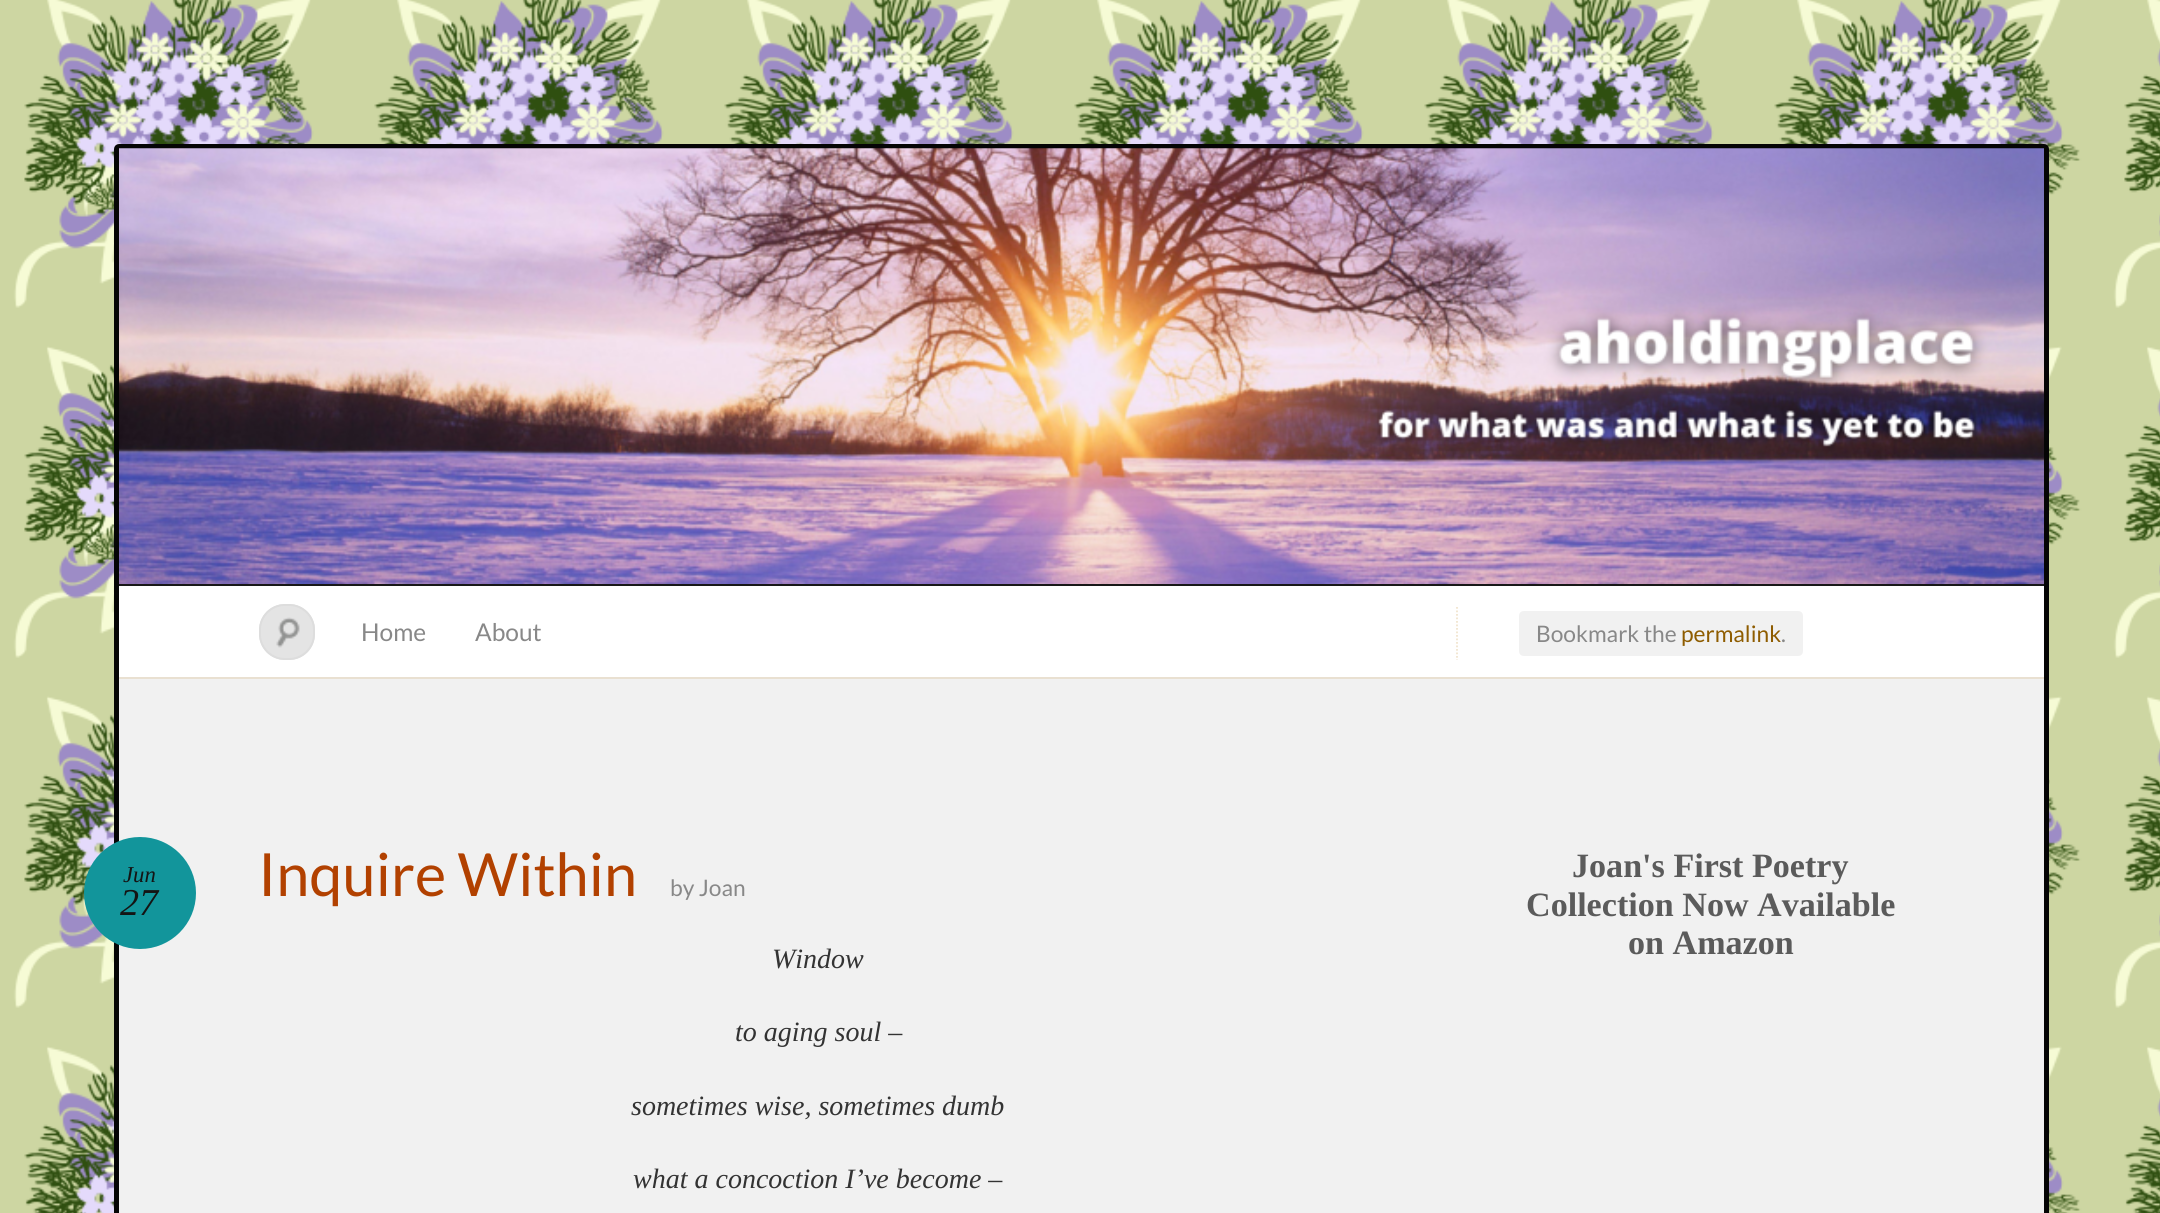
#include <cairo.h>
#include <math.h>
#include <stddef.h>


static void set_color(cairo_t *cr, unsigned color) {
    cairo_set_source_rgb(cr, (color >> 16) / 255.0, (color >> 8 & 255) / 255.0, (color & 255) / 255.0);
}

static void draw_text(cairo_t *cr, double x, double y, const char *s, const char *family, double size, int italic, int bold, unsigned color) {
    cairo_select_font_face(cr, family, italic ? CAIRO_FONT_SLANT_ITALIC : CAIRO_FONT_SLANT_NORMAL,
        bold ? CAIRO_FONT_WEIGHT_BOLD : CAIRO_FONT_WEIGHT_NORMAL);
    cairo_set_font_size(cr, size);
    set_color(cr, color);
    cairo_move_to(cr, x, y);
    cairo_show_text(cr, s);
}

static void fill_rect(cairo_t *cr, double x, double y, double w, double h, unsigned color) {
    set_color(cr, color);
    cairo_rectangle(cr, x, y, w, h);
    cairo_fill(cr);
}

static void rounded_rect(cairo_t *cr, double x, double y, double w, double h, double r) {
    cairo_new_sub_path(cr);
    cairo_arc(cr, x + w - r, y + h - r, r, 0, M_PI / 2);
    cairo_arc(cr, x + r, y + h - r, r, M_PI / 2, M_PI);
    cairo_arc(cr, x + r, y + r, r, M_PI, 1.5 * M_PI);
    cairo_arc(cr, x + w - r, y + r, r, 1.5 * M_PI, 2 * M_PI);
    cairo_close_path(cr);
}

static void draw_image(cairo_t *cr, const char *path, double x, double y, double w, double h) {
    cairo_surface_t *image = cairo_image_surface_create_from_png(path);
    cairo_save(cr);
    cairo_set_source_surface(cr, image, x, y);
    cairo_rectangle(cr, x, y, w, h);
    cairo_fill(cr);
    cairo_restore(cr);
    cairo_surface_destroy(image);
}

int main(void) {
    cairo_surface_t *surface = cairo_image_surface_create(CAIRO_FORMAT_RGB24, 2160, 1213);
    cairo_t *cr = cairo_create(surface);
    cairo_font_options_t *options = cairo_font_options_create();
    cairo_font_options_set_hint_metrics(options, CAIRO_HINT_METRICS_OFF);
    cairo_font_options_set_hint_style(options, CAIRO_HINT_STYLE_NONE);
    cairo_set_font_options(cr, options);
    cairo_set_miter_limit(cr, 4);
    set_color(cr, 0xFFFFFF);
    cairo_paint(cr);
    draw_image(cr, "assets/img1.png", 0, 0, 2160, 1213);
    set_color(cr, 0xF1F1F1);
    rounded_rect(cr, 116.5, 146.5, 1930, 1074, 2.5);
    cairo_fill_preserve(cr);
    set_color(cr, 0x050505);
    cairo_set_line_width(cr, 5);
    cairo_stroke(cr);
    fill_rect(cr, 119, 584, 1925, 2, 0x181818);
    draw_image(cr, "assets/img2.png", 119, 148, 1925, 436);
    fill_rect(cr, 119, 586, 1925, 91, 0xFFFFFF);
    fill_rect(cr, 119, 677, 1925, 2, 0xE9E0D1);
    set_color(cr, 0xE4E4E4);
    rounded_rect(cr, 259, 604, 56, 56, 26);
    cairo_fill(cr);
    draw_image(cr, "assets/img3.png", 276, 617, 24, 31);
    rounded_rect(cr, 260, 605, 54, 54, 25);
    set_color(cr, 0xDDDDDD);
    cairo_set_line_width(cr, 2);
    cairo_stroke(cr);
    cairo_new_path(cr);
    cairo_move_to(cr, 1457, 607);
    cairo_line_to(cr, 1457, 660);
    set_color(cr, 0xF1E4CE);
    cairo_set_line_width(cr, 1.8);
    cairo_set_dash(cr, (double[]){1.75, 1.75}, 2, 0);
    cairo_stroke(cr);
    draw_text(cr, 361, 641, "Home", "Lato", 24.5, 0, 0, 0x888888);
    draw_text(cr, 475, 641, "About", "Lato", 24.5, 0, 0, 0x888888);
    set_color(cr, 0xF1F1F1);
    cairo_new_path(cr);
    cairo_move_to(cr, 1524, 611);
    cairo_line_to(cr, 1680, 611);
    cairo_line_to(cr, 1680, 656);
    cairo_line_to(cr, 1524, 656);
    cairo_curve_to(cr, 1521, 656, 1519, 654, 1519, 651);
    cairo_line_to(cr, 1519, 616);
    cairo_curve_to(cr, 1519, 613, 1521, 611, 1524, 611);
    cairo_close_path(cr);
    cairo_fill(cr);
    draw_text(cr, 1536, 642, "Bookmark the", "Lato", 22.75, 0, 0, 0x888888);
    fill_rect(cr, 1680, 611, 102, 45, 0xF1F1F1);
    draw_text(cr, 1681, 642, "permalink", "Lato", 22.75, 0, 0, 0x8E5C00);
    set_color(cr, 0xF1F1F1);
    cairo_new_path(cr);
    cairo_move_to(cr, 1782, 611);
    cairo_line_to(cr, 1798, 611);
    cairo_curve_to(cr, 1801, 611, 1803, 613, 1803, 616);
    cairo_line_to(cr, 1803, 651);
    cairo_curve_to(cr, 1803, 654, 1801, 656, 1798, 656);
    cairo_line_to(cr, 1782, 656);
    cairo_close_path(cr);
    cairo_fill(cr);
    draw_text(cr, 1781, 642, ".", "Lato", 22.75, 0, 0, 0x888888);
    draw_text(cr, 258, 896, "Inquire Within", "Lato", 59.5, 0, 0, 0xB24100);
    set_color(cr, 0x12959B);
    cairo_new_path(cr);
    cairo_arc(cr, 140, 893, 56, 0, 2 * M_PI);
    cairo_fill(cr);
    draw_text(cr, 123, 882, "Jun", "Liberation Serif", 22.75, 1, 0, 0x141414);
    draw_text(cr, 120, 915, "27", "Liberation Serif", 38, 1, 0, 0x141414);
    draw_text(cr, 670, 896, "by Joan", "Lato", 22.75, 0, 0, 0x888888);
    draw_text(cr, 772, 968, "Window", "Liberation Serif", 28, 1, 0, 0x333333);
    draw_text(cr, 735, 1041, "to aging soul –", "Liberation Serif", 28, 1, 0, 0x333333);
    draw_text(cr, 631, 1115, "sometimes wise, sometimes dumb", "Liberation Serif", 28, 1, 0, 0x333333);
    draw_text(cr, 633, 1188, "what a concoction I’ve become –", "Liberation Serif", 28, 1, 0, 0x333333);
    draw_text(cr, 1572, 877, "Joan's First Poetry", "Liberation Serif", 34.1, 0, 1, 0x5B5B5B);
    draw_text(cr, 1526, 916, "Collection Now Available", "Liberation Serif", 34.1, 0, 1, 0x5B5B5B);
    draw_text(cr, 1628, 954, "on Amazon", "Liberation Serif", 34.1, 0, 1, 0x5B5B5B);
    cairo_surface_write_to_png(surface, "output.png");
    cairo_font_options_destroy(options);
    cairo_destroy(cr);
    cairo_surface_destroy(surface);
    return 0;
}
